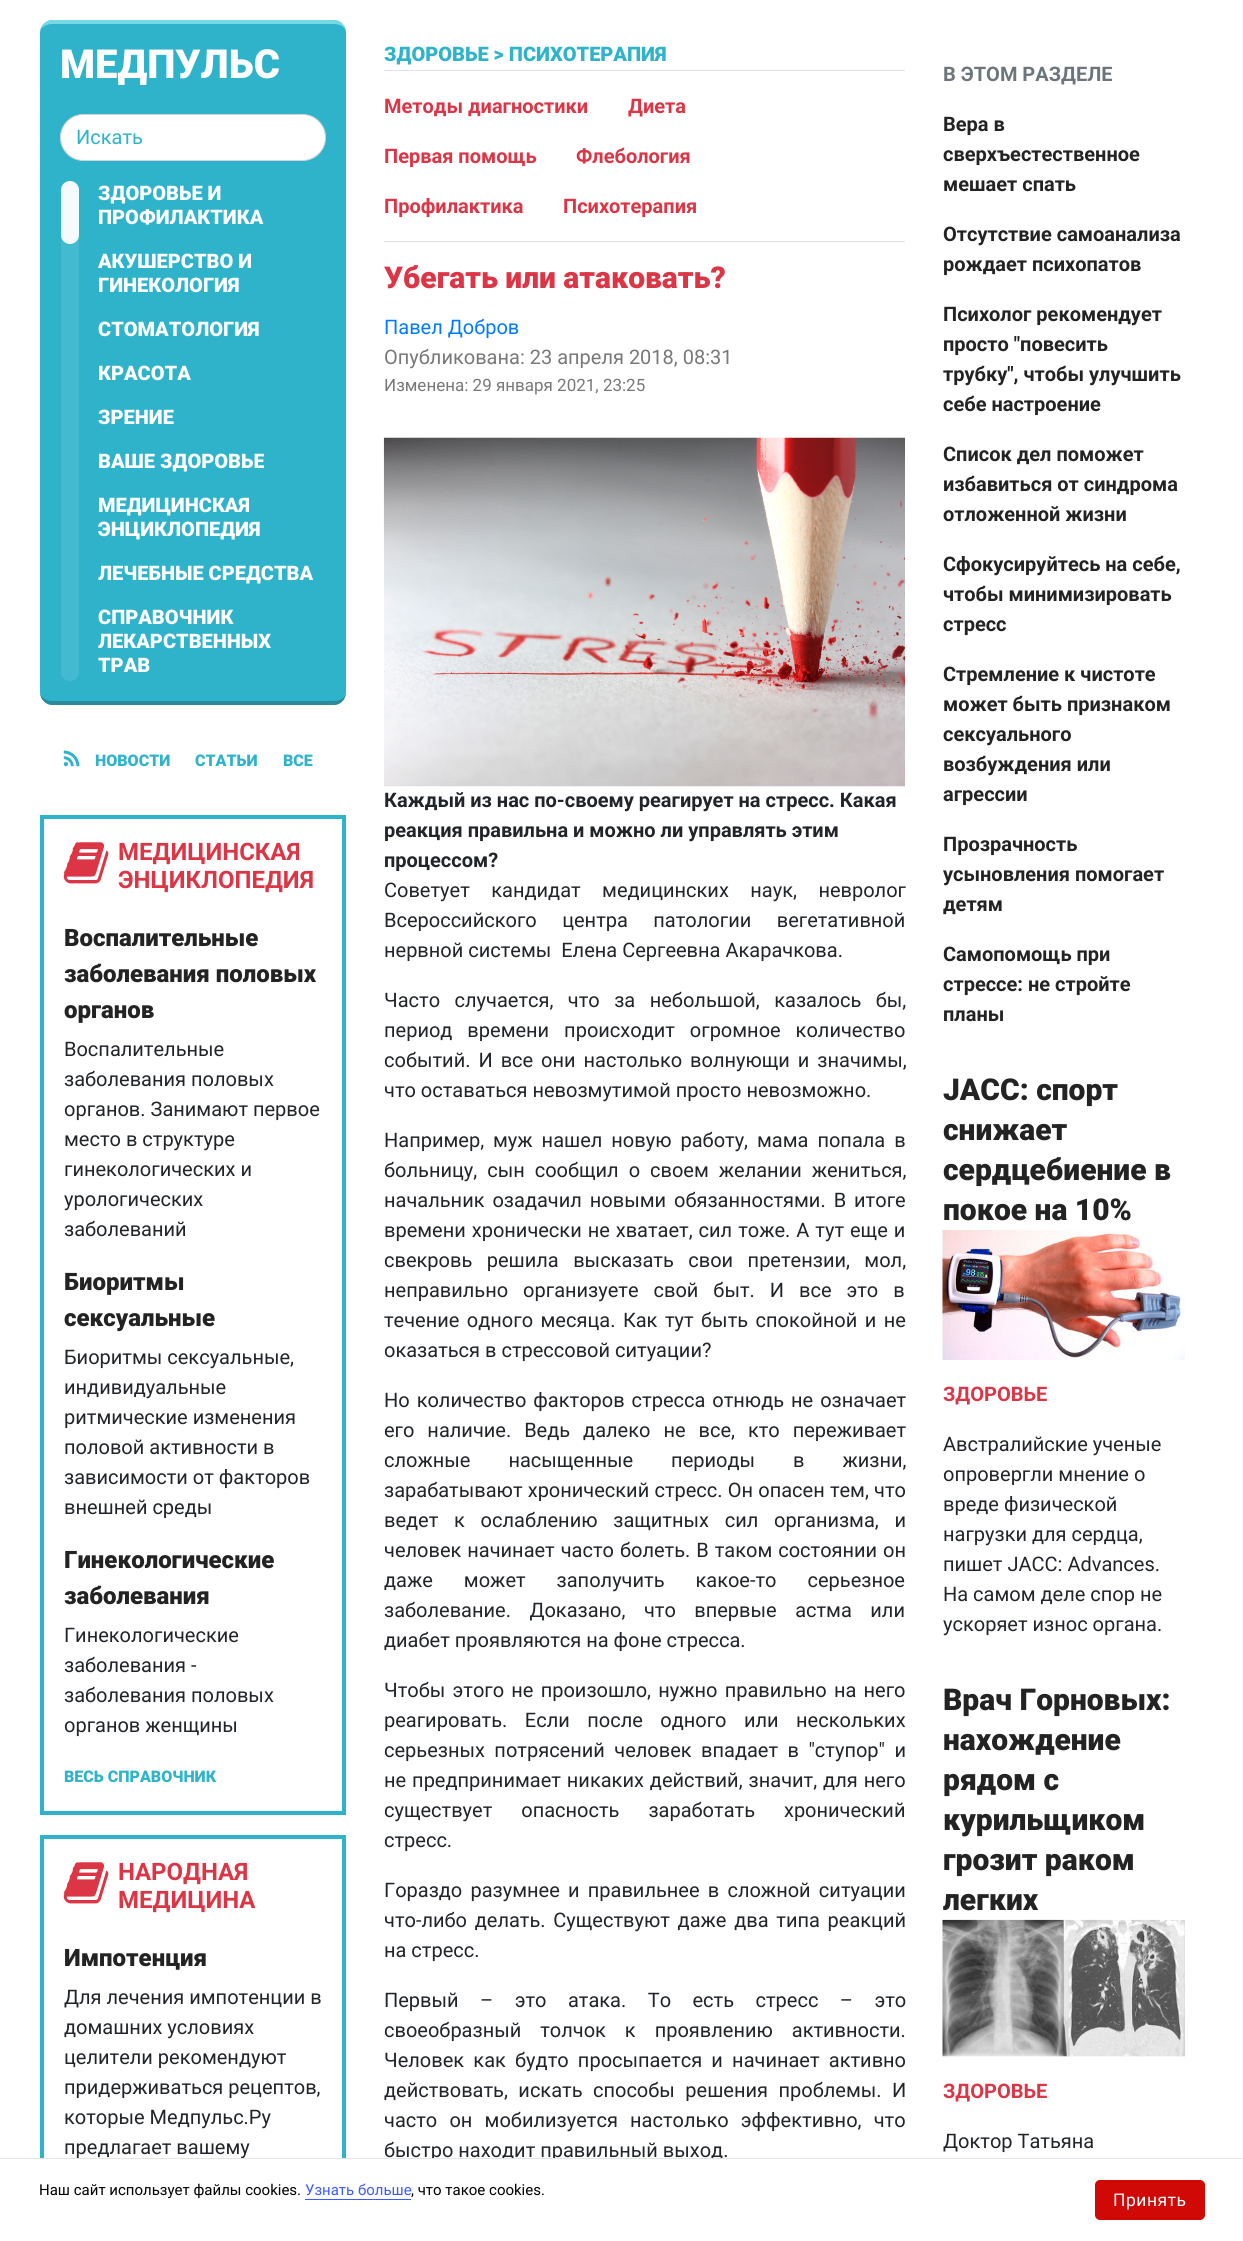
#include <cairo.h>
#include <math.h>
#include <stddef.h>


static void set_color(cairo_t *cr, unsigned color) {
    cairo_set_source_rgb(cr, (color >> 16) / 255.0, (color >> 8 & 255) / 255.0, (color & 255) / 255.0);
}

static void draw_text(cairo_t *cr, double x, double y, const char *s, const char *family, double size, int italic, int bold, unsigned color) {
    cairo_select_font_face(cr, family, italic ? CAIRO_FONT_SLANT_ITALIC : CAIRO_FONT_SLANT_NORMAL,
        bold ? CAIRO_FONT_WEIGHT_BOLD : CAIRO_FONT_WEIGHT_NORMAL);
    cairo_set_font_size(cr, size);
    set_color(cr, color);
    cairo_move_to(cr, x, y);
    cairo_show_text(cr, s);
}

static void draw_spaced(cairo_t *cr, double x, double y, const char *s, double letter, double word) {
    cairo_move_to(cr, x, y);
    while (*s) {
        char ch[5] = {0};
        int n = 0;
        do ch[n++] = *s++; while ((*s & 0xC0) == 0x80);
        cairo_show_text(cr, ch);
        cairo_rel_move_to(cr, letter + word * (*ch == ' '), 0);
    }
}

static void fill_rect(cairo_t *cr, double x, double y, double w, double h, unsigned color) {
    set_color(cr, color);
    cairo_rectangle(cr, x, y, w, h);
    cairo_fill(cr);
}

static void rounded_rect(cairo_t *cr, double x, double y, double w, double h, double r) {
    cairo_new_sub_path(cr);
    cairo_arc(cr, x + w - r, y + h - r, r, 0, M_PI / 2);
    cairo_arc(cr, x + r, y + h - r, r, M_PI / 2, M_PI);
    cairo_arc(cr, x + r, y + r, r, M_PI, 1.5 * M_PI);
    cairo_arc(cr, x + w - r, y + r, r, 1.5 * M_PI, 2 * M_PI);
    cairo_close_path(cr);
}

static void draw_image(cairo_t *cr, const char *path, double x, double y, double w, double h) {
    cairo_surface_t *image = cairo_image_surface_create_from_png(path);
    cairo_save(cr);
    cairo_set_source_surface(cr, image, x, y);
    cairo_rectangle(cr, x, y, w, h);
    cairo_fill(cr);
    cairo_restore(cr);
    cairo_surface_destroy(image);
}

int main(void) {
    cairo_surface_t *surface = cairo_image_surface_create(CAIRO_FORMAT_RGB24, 1243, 2241);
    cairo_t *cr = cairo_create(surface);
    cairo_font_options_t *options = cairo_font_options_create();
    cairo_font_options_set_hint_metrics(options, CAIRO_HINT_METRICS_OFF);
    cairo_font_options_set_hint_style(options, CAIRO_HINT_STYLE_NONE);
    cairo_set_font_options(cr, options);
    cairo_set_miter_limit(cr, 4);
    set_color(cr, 0xFFFFFF);
    cairo_paint(cr);
    set_color(cr, 0x2FB3CA);
    rounded_rect(cr, 40, 20, 306, 685, 13);
    cairo_fill(cr);
    set_color(cr, 0x77D8E9);
    cairo_new_path(cr);
    cairo_move_to(cr, 52, 20);
    cairo_curve_to(cr, 46, 20, 40, 26, 40, 32);
    cairo_curve_to(cr, 40, 28, 46, 24, 52, 24);
    cairo_line_to(cr, 334, 24);
    cairo_curve_to(cr, 341, 24, 346, 28, 346, 32);
    cairo_curve_to(cr, 346, 26, 341, 20, 334, 20);
    cairo_close_path(cr);
    cairo_fill(cr);
    set_color(cr, 0x2B8B9C);
    cairo_new_path(cr);
    cairo_move_to(cr, 334, 705);
    cairo_curve_to(cr, 341, 705, 346, 699, 346, 692);
    cairo_curve_to(cr, 346, 697, 341, 701, 334, 701);
    cairo_line_to(cr, 52, 701);
    cairo_curve_to(cr, 46, 701, 40, 697, 40, 692);
    cairo_curve_to(cr, 40, 699, 46, 705, 52, 705);
    cairo_close_path(cr);
    cairo_fill(cr);
    draw_text(cr, 60, 78, "МЕДПУЛЬС", "Roboto Black", 40, 0, 0, 0xFFFFFF);
    rounded_rect(cr, 60.5, 114.5, 265, 46, 23);
    cairo_fill_preserve(cr);
    set_color(cr, 0xCED4DA);
    cairo_set_line_width(cr, 1);
    cairo_stroke(cr);
    draw_text(cr, 76, 144, "Искать", "Roboto", 20, 0, 0, 0x2FB3CA);
    set_color(cr, 0x43BACF);
    rounded_rect(cr, 61, 181, 18, 500, 9);
    cairo_fill(cr);
    set_color(cr, 0xF5FBFC);
    rounded_rect(cr, 61, 181, 18, 63, 9);
    cairo_fill(cr);
    draw_text(cr, 98, 200, "ЗДОРОВЬЕ И", "Roboto Black", 20, 0, 0, 0xFFFFFF);
    draw_text(cr, 98, 224, "ПРОФИЛАКТИКА", "Roboto Black", 20, 0, 0, 0xFFFFFF);
    draw_text(cr, 98, 268, "АКУШЕРСТВО И", "Roboto Black", 20, 0, 0, 0xFFFFFF);
    draw_text(cr, 98, 292, "ГИНЕКОЛОГИЯ", "Roboto Black", 20, 0, 0, 0xFFFFFF);
    draw_text(cr, 98, 336, "СТОМАТОЛОГИЯ", "Roboto Black", 20, 0, 0, 0xFFFFFF);
    draw_text(cr, 98, 380, "КРАСОТА", "Roboto Black", 20, 0, 0, 0xFFFFFF);
    draw_text(cr, 98, 424, "ЗРЕНИЕ", "Roboto Black", 20, 0, 0, 0xFFFFFF);
    draw_text(cr, 98, 468, "ВАШЕ ЗДОРОВЬЕ", "Roboto Black", 20, 0, 0, 0xFFFFFF);
    draw_text(cr, 98, 512, "МЕДИЦИНСКАЯ", "Roboto Black", 20, 0, 0, 0xFFFFFF);
    cairo_save(cr);
    cairo_rectangle(cr, 98, 181, 228, 500);
    cairo_clip(cr);
    draw_text(cr, 98, 536, "ЭНЦИКЛОПЕДИЯ", "Roboto Black", 20, 0, 0, 0xFFFFFF);
    draw_text(cr, 98, 580, "ЛЕЧЕБНЫЕ СРЕДСТВА", "Roboto Black", 20, 0, 0, 0xFFFFFF);
    cairo_restore(cr);
    draw_text(cr, 98, 624, "СПРАВОЧНИК", "Roboto Black", 20, 0, 0, 0xFFFFFF);
    cairo_save(cr);
    cairo_rectangle(cr, 98, 181, 228, 500);
    cairo_clip(cr);
    draw_text(cr, 98, 648, "ЛЕКАРСТВЕННЫХ", "Roboto Black", 20, 0, 0, 0xFFFFFF);
    cairo_restore(cr);
    draw_text(cr, 98, 672, "ТРАВ", "Roboto Black", 20, 0, 0, 0xFFFFFF);
    draw_image(cr, "assets/img1.png", 63, 750, 17, 17);
    draw_text(cr, 95, 766, "НОВОСТИ", "Roboto Black", 16, 0, 0, 0x2FB3CA);
    draw_text(cr, 195, 766, "СТАТЬИ", "Roboto Black", 16, 0, 0, 0x2FB3CA);
    draw_text(cr, 283, 766, "ВСЕ", "Roboto Black", 16, 0, 0, 0x2FB3CA);
    cairo_rectangle(cr, 42, 817, 302, 996);
    cairo_set_line_width(cr, 4);
    cairo_stroke(cr);
    draw_image(cr, "assets/img2.png", 63, 842, 46, 42);
    draw_text(cr, 118, 860, "МЕДИЦИНСКАЯ", "Roboto", 24, 0, 1, 0xDC3545);
    draw_text(cr, 118, 888, "ЭНЦИКЛОПЕДИЯ", "Roboto", 24, 0, 1, 0xDC3545);
    draw_text(cr, 64, 946, "Воспалительные", "Roboto Black", 24, 0, 0, 0x232323);
    draw_text(cr, 64, 982, "заболевания половых", "Roboto Black", 24, 0, 0, 0x232323);
    draw_text(cr, 64, 1018, "органов", "Roboto Black", 24, 0, 0, 0x232323);
    draw_text(cr, 64, 1056, "Воспалительные", "Roboto", 20, 0, 0, 0x212529);
    draw_text(cr, 64, 1086, "заболевания половых", "Roboto", 20, 0, 0, 0x212529);
    draw_text(cr, 64, 1116, "органов. Занимают первое", "Roboto", 20, 0, 0, 0x212529);
    draw_text(cr, 64, 1146, "место в структуре", "Roboto", 20, 0, 0, 0x212529);
    draw_text(cr, 64, 1176, "гинекологических и", "Roboto", 20, 0, 0, 0x212529);
    draw_text(cr, 64, 1206, "урологических", "Roboto", 20, 0, 0, 0x212529);
    draw_text(cr, 64, 1236, "заболеваний", "Roboto", 20, 0, 0, 0x212529);
    draw_text(cr, 64, 1290, "Биоритмы", "Roboto Black", 24, 0, 0, 0x232323);
    draw_text(cr, 64, 1326, "сексуальные", "Roboto Black", 24, 0, 0, 0x232323);
    draw_text(cr, 64, 1364, "Биоритмы сексуальные,", "Roboto", 20, 0, 0, 0x212529);
    draw_text(cr, 64, 1394, "индивидуальные", "Roboto", 20, 0, 0, 0x212529);
    draw_text(cr, 64, 1424, "ритмические изменения", "Roboto", 20, 0, 0, 0x212529);
    draw_text(cr, 64, 1454, "половой активности в", "Roboto", 20, 0, 0, 0x212529);
    draw_text(cr, 64, 1484, "зависимости от факторов", "Roboto", 20, 0, 0, 0x212529);
    draw_text(cr, 64, 1514, "внешней среды", "Roboto", 20, 0, 0, 0x212529);
    draw_text(cr, 64, 1568, "Гинекологические", "Roboto Black", 24, 0, 0, 0x232323);
    draw_text(cr, 64, 1604, "заболевания", "Roboto Black", 24, 0, 0, 0x232323);
    draw_text(cr, 64, 1642, "Гинекологические", "Roboto", 20, 0, 0, 0x212529);
    draw_text(cr, 64, 1672, "заболевания -", "Roboto", 20, 0, 0, 0x212529);
    draw_text(cr, 64, 1702, "заболевания половых", "Roboto", 20, 0, 0, 0x212529);
    draw_text(cr, 64, 1732, "органов женщины", "Roboto", 20, 0, 0, 0x212529);
    draw_text(cr, 64, 1782, "ВЕСЬ СПРАВОЧНИК", "Roboto Black", 16, 0, 0, 0x2FB3CA);
    cairo_rectangle(cr, 42, 1837, 302, 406);
    cairo_stroke(cr);
    draw_image(cr, "assets/img2.png", 63, 1862, 46, 42);
    draw_text(cr, 118, 1880, "НАРОДНАЯ", "Roboto", 24, 0, 1, 0xDC3545);
    draw_text(cr, 118, 1908, "МЕДИЦИНА", "Roboto", 24, 0, 1, 0xDC3545);
    draw_text(cr, 64, 1966, "Импотенция", "Roboto Black", 24, 0, 0, 0x232323);
    draw_text(cr, 64, 2004, "Для лечения импотенции в", "Roboto", 20, 0, 0, 0x212529);
    draw_text(cr, 64, 2034, "домашних условиях", "Roboto", 20, 0, 0, 0x212529);
    draw_text(cr, 64, 2064, "целители рекомендуют", "Roboto", 20, 0, 0, 0x212529);
    draw_text(cr, 64, 2094, "придерживаться рецептов,", "Roboto", 20, 0, 0, 0x212529);
    draw_text(cr, 64, 2124, "которые Медпульс.Ру", "Roboto", 20, 0, 0, 0x212529);
    draw_text(cr, 64, 2154, "предлагает вашему", "Roboto", 20, 0, 0, 0x212529);
    draw_text(cr, 384, 61, "ЗДОРОВЬЕ > ПСИХОТЕРАПИЯ", "Roboto Black", 20, 0, 0, 0x2FB3CA);
    fill_rect(cr, 384, 70, 521, 1, 0xDEE2E6);
    fill_rect(cr, 384, 241, 521, 1, 0xDEE2E6);
    draw_text(cr, 384, 113, "Методы диагностики", "Roboto", 20, 0, 1, 0xDC3545);
    draw_text(cr, 628, 113, "Диета", "Roboto", 20, 0, 1, 0xDC3545);
    draw_text(cr, 384, 163, "Первая помощь", "Roboto", 20, 0, 1, 0xDC3545);
    draw_text(cr, 576, 163, "Флебология", "Roboto", 20, 0, 1, 0xDC3545);
    draw_text(cr, 384, 213, "Профилактика", "Roboto", 20, 0, 1, 0xDC3545);
    draw_text(cr, 563, 213, "Психотерапия", "Roboto", 20, 0, 1, 0xDC3545);
    draw_text(cr, 384, 288, "Убегать или атаковать?", "Roboto Black", 30, 0, 0, 0xDC3545);
    draw_text(cr, 384, 334, "Павел Добров", "Roboto", 20, 0, 0, 0x007BFF);
    draw_text(cr, 384, 364, "Опубликована: 23 апреля 2018, 08:31", "Roboto", 20, 0, 0, 0x787878);
    draw_text(cr, 384, 391, "Изменена: 29 января 2021, 23:25", "Roboto", 17, 0, 0, 0x787878);
    draw_image(cr, "assets/img3.png", 383, 437, 522, 350);
    draw_text(cr, 384, 807, "Каждый из нас по-своему реагирует на стресс. Какая", "Roboto", 20, 0, 1, 0x212529);
    draw_text(cr, 384, 837, "реакция правильна и можно ли управлять этим", "Roboto", 20, 0, 1, 0x212529);
    draw_text(cr, 384, 867, "процессом?", "Roboto", 20, 0, 1, 0x212529);
    cairo_select_font_face(cr, "Roboto", CAIRO_FONT_SLANT_NORMAL, CAIRO_FONT_WEIGHT_NORMAL);
    draw_spaced(cr, 384, 897, "Советует кандидат медицинских наук, невролог", 0, 16.5);
    draw_spaced(cr, 384, 927, "Всероссийского центра патологии вегетативной", 0, 20.5);
    draw_text(cr, 384, 957, "нервной системы  Елена Сергеевна Акарачкова.", "Roboto", 20, 0, 0, 0x212529);
    draw_spaced(cr, 384, 1007, "Часто случается, что за небольшой, казалось бы,", 0, 9.5);
    draw_spaced(cr, 384, 1037, "период времени происходит огромное количество", 0, 10);
    draw_spaced(cr, 384, 1067, "событий. И все они настолько волнующи и значимы,", 0, 3);
    draw_text(cr, 384, 1097, "что оставаться невозмутимой просто невозможно.", "Roboto", 20, 0, 0, 0x212529);
    draw_spaced(cr, 384, 1147, "Например, муж нашел новую работу, мама попала в", 0, 4);
    draw_spaced(cr, 384, 1177, "больницу, сын сообщил о своем желании жениться,", 0, 5);
    draw_spaced(cr, 384, 1207, "начальник озадачил новыми обязанностями. В итоге", 0, 3);
    draw_spaced(cr, 384, 1237, "времени хронически не хватает, сил тоже. А тут еще и", 0, 1);
    draw_spaced(cr, 384, 1267, "свекровь решила высказать свои претензии, мол,", 0, 9.5);
    draw_spaced(cr, 384, 1297, "неправильно организуете свой быт. И все это в", 0, 10);
    draw_spaced(cr, 384, 1327, "течение одного месяца. Как тут быть спокойной и не", 0, 2.5);
    draw_text(cr, 384, 1357, "оказаться в стрессовой ситуации?", "Roboto", 20, 0, 0, 0x212529);
    draw_spaced(cr, 384, 1407, "Но количество факторов стресса отнюдь не означает", 0, 2);
    draw_spaced(cr, 384, 1437, "его наличие. Ведь далеко не все, кто переживает", 0, 8);
    draw_spaced(cr, 384, 1467, "сложные насыщенные периоды в жизни,", 0, 33);
    draw_spaced(cr, 384, 1497, "зарабатывают хронический стресс. Он опасен тем, что", 0, 0.25);
    draw_spaced(cr, 384, 1527, "ведет к ослаблению защитных сил организма, и", 0, 10.75);
    draw_spaced(cr, 384, 1557, "человек начинает часто болеть. В таком состоянии он", 0, 1);
    draw_spaced(cr, 384, 1587, "даже может заполучить какое-то серьезное", 0, 26);
    draw_spaced(cr, 384, 1617, "заболевание. Доказано, что впервые астма или", 0, 13.5);
    draw_text(cr, 384, 1647, "диабет проявляются на фоне стресса.", "Roboto", 20, 0, 0, 0x212529);
    draw_spaced(cr, 384, 1697, "Чтобы этого не произошло, нужно правильно на него", 0, 2.25);
    draw_spaced(cr, 384, 1727, "реагировать. Если после одного или нескольких", 0, 12.5);
    draw_spaced(cr, 384, 1757, "серьезных потрясений человек впадает в \"ступор\" и", 0, 4.5);
    draw_spaced(cr, 384, 1787, "не предпринимает никаких действий, значит, для него", 0, 1);
    draw_spaced(cr, 384, 1817, "существует опасность заработать хронический", 0, 24);
    draw_text(cr, 384, 1847, "стресс.", "Roboto", 20, 0, 0, 0x212529);
    draw_spaced(cr, 384, 1897, "Гораздо разумнее и правильнее в сложной ситуации", 0, 3.25);
    draw_spaced(cr, 384, 1927, "что-либо делать. Cуществуют даже два типа реакций", 0, 2.75);
    draw_text(cr, 384, 1957, "на стресс.", "Roboto", 20, 0, 0, 0x212529);
    draw_spaced(cr, 384, 2007, "Первый – это атака. То есть стресс – это", 0, 16.5);
    draw_spaced(cr, 384, 2037, "своеобразный толчок к проявлению активности.", 0, 14);
    draw_spaced(cr, 384, 2067, "Человек как будто просыпается и начинает активно", 0, 4.25);
    draw_spaced(cr, 384, 2097, "действовать, искать способы решения проблемы. И", 0, 5.5);
    draw_spaced(cr, 384, 2127, "часто он мобилизуется настолько эффективно, что", 0, 7.25);
    draw_text(cr, 384, 2157, "быстро находит правильный выход.", "Roboto", 20, 0, 0, 0x212529);
    draw_text(cr, 943, 81, "В ЭТОМ РАЗДЕЛЕ", "Roboto", 20, 0, 1, 0x6C757D);
    draw_text(cr, 943, 131, "Вера в", "Roboto", 20, 0, 1, 0x232323);
    draw_text(cr, 943, 161, "сверхъестественное", "Roboto", 20, 0, 1, 0x232323);
    draw_text(cr, 943, 191, "мешает спать", "Roboto", 20, 0, 1, 0x232323);
    draw_text(cr, 943, 241, "Отсутствие самоанализа", "Roboto", 20, 0, 1, 0x232323);
    draw_text(cr, 943, 271, "рождает психопатов", "Roboto", 20, 0, 1, 0x232323);
    draw_text(cr, 943, 321, "Психолог рекомендует", "Roboto", 20, 0, 1, 0x232323);
    draw_text(cr, 943, 351, "просто \"повесить", "Roboto", 20, 0, 1, 0x232323);
    draw_text(cr, 943, 381, "трубку\", чтобы улучшить", "Roboto", 20, 0, 1, 0x232323);
    draw_text(cr, 943, 411, "себе настроение", "Roboto", 20, 0, 1, 0x232323);
    draw_text(cr, 943, 461, "Список дел поможет", "Roboto", 20, 0, 1, 0x232323);
    draw_text(cr, 943, 491, "избавиться от синдрома", "Roboto", 20, 0, 1, 0x232323);
    draw_text(cr, 943, 521, "отложенной жизни", "Roboto", 20, 0, 1, 0x232323);
    draw_text(cr, 943, 571, "Сфокусируйтесь на себе,", "Roboto", 20, 0, 1, 0x232323);
    draw_text(cr, 943, 601, "чтобы минимизировать", "Roboto", 20, 0, 1, 0x232323);
    draw_text(cr, 943, 631, "стресс", "Roboto", 20, 0, 1, 0x232323);
    draw_text(cr, 943, 681, "Стремление к чистоте", "Roboto", 20, 0, 1, 0x232323);
    draw_text(cr, 943, 711, "может быть признаком", "Roboto", 20, 0, 1, 0x232323);
    draw_text(cr, 943, 741, "сексуального", "Roboto", 20, 0, 1, 0x232323);
    draw_text(cr, 943, 771, "возбуждения или", "Roboto", 20, 0, 1, 0x232323);
    draw_text(cr, 943, 801, "агрессии", "Roboto", 20, 0, 1, 0x232323);
    draw_text(cr, 943, 851, "Прозрачность", "Roboto", 20, 0, 1, 0x232323);
    draw_text(cr, 943, 881, "усыновления помогает", "Roboto", 20, 0, 1, 0x232323);
    draw_text(cr, 943, 911, "детям", "Roboto", 20, 0, 1, 0x232323);
    draw_text(cr, 943, 961, "Самопомощь при", "Roboto", 20, 0, 1, 0x232323);
    draw_text(cr, 943, 991, "стрессе: не стройте", "Roboto", 20, 0, 1, 0x232323);
    draw_text(cr, 943, 1021, "планы", "Roboto", 20, 0, 1, 0x232323);
    draw_text(cr, 943, 1100, "JACC: спорт", "Roboto Black", 30, 0, 0, 0x232323);
    draw_text(cr, 943, 1140, "снижает", "Roboto Black", 30, 0, 0, 0x232323);
    draw_text(cr, 943, 1180, "сердцебиение в", "Roboto Black", 30, 0, 0, 0x232323);
    draw_text(cr, 943, 1220, "покое на 10%", "Roboto Black", 30, 0, 0, 0x232323);
    draw_image(cr, "assets/img4.png", 942, 1230, 243, 130);
    draw_text(cr, 943, 1401, "ЗДОРОВЬЕ", "Roboto", 20, 0, 1, 0xDC3545);
    draw_text(cr, 943, 1451, "Австралийские ученые", "Roboto", 20, 0, 0, 0x212529);
    draw_text(cr, 943, 1481, "опровергли мнение о", "Roboto", 20, 0, 0, 0x212529);
    draw_text(cr, 943, 1511, "вреде физической", "Roboto", 20, 0, 0, 0x212529);
    draw_text(cr, 943, 1541, "нагрузки для сердца,", "Roboto", 20, 0, 0, 0x212529);
    draw_text(cr, 943, 1571, "пишет JACC: Advances.", "Roboto", 20, 0, 0, 0x212529);
    draw_text(cr, 943, 1601, "На самом деле спор не", "Roboto", 20, 0, 0, 0x212529);
    draw_text(cr, 943, 1631, "ускоряет износ органа.", "Roboto", 20, 0, 0, 0x212529);
    draw_text(cr, 943, 1710, "Врач Горновых:", "Roboto Black", 30, 0, 0, 0x232323);
    draw_text(cr, 943, 1750, "нахождение", "Roboto Black", 30, 0, 0, 0x232323);
    draw_text(cr, 943, 1790, "рядом с", "Roboto Black", 30, 0, 0, 0x232323);
    draw_text(cr, 943, 1830, "курильщиком", "Roboto Black", 30, 0, 0, 0x232323);
    draw_text(cr, 943, 1870, "грозит раком", "Roboto Black", 30, 0, 0, 0x232323);
    draw_text(cr, 943, 1910, "легких", "Roboto Black", 30, 0, 0, 0x232323);
    draw_image(cr, "assets/img5.png", 942, 1919, 243, 138);
    draw_text(cr, 943, 2098, "ЗДОРОВЬЕ", "Roboto", 20, 0, 1, 0xDC3545);
    draw_text(cr, 943, 2148, "Доктор Татьяна", "Roboto", 20, 0, 0, 0x212529);
    fill_rect(cr, 40, 2159, 683, 82, 0xFFFFFF);
    fill_rect(cr, 0, 2158, 1243, 1, 0xE5E5E5);
    draw_text(cr, 39, 2195, "Наш сайт использует файлы cookies.", "Roboto", 15, 0, 0, 0x000000);
    draw_text(cr, 305, 2195, "Узнать больше", "Roboto", 15, 0, 0, 0x3D5AFE);
    fill_rect(cr, 305, 2199, 106, 1, 0x3D5AFE);
    draw_text(cr, 411, 2195, ", что такое cookies.", "Roboto", 15, 0, 0, 0x000000);
    set_color(cr, 0xD10906);
    rounded_rect(cr, 1095, 2180, 110, 40, 5);
    cairo_fill(cr);
    cairo_set_font_size(cr, 17.5);
    set_color(cr, 0xFFFFFF);
    draw_spaced(cr, 1113, 2206, "Принять", 0.5, 0);
    cairo_surface_write_to_png(surface, "output.png");
    cairo_font_options_destroy(options);
    cairo_destroy(cr);
    cairo_surface_destroy(surface);
    return 0;
}
